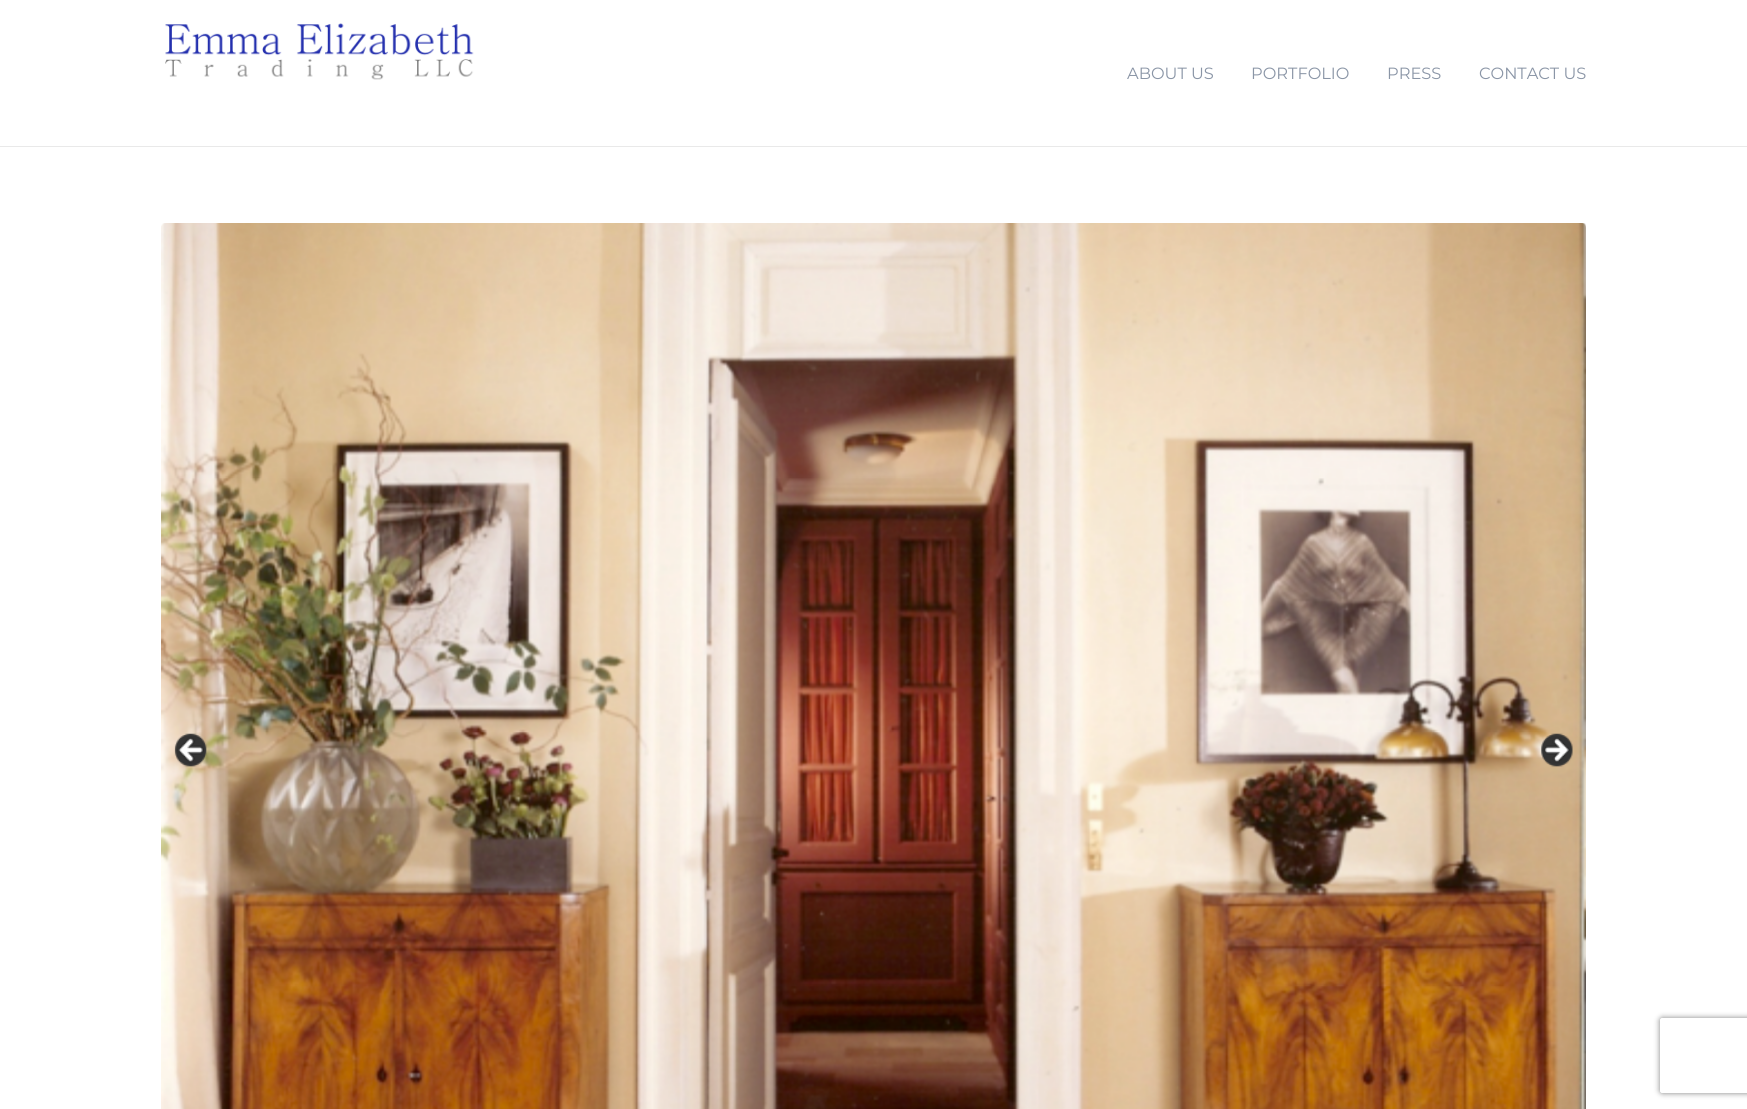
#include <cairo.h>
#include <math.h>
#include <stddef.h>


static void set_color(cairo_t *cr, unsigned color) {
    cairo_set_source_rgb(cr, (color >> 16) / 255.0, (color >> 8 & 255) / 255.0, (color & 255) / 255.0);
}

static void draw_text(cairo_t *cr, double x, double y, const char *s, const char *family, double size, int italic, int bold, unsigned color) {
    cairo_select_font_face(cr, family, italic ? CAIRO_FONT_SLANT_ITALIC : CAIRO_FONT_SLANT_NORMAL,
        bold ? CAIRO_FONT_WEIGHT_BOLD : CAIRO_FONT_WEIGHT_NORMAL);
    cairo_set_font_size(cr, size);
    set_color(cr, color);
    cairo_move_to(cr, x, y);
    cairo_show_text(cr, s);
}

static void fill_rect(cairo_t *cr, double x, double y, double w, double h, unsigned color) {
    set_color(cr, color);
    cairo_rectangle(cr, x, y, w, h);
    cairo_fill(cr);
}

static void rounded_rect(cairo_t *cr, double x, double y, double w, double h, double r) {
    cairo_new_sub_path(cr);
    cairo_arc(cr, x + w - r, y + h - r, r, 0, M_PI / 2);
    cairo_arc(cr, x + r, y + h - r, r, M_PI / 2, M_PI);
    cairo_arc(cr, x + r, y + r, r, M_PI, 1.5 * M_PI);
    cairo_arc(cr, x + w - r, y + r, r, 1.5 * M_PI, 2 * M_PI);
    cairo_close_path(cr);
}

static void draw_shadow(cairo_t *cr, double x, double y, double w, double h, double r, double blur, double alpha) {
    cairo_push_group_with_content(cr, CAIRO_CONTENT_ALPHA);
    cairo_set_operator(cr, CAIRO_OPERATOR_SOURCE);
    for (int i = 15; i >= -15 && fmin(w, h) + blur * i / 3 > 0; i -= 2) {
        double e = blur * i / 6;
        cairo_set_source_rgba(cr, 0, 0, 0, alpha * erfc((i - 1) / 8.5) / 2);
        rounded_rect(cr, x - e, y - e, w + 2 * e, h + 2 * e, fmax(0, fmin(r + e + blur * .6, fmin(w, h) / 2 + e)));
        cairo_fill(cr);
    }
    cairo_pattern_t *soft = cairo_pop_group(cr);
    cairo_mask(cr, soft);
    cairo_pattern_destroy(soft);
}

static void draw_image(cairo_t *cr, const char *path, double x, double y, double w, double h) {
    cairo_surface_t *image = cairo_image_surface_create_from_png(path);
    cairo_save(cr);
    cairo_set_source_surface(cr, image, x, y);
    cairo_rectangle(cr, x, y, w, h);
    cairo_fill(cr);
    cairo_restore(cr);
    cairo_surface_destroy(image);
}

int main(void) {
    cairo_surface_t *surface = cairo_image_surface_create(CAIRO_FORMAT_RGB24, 1747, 1109);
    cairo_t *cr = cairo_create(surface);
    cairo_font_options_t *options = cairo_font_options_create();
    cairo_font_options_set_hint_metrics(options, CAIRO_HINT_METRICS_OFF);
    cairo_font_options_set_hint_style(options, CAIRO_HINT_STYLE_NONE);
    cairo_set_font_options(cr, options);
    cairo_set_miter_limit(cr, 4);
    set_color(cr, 0xFFFFFF);
    cairo_paint(cr);
    fill_rect(cr, 0, 146, 1747, 1, 0xE9E9E9);
    draw_image(cr, "assets/img1.png", 165, 23, 309, 57);
    draw_text(cr, 1127, 79, "ABOUT US", "Montserrat", 16.25, 0, 0, 0x8A95A6);
    draw_text(cr, 1251, 79, "PORTFOLIO", "Montserrat", 16.25, 0, 0, 0x8A95A6);
    draw_text(cr, 1387, 79, "PRESS", "Montserrat", 16.25, 0, 0, 0x8A95A6);
    draw_text(cr, 1479, 79, "CONTACT US", "Montserrat", 16.25, 0, 0, 0x8A95A6);
    draw_image(cr, "assets/img2.png", 161, 223, 1425, 886);
    draw_image(cr, "assets/img3.png", 174, 733, 33, 34);
    draw_image(cr, "assets/img4.png", 1541, 733, 32, 34);
    cairo_save(cr);
    cairo_set_fill_rule(cr, CAIRO_FILL_RULE_EVEN_ODD);
    cairo_new_path(cr);
    cairo_move_to(cr, 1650, 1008);
    cairo_line_to(cr, 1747, 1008);
    cairo_line_to(cr, 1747, 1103);
    cairo_line_to(cr, 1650, 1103);
    cairo_close_path(cr);
    cairo_move_to(cr, 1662.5, 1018);
    cairo_line_to(cr, 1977.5, 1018);
    cairo_curve_to(cr, 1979, 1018, 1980, 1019, 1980, 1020.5);
    cairo_line_to(cr, 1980, 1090.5);
    cairo_curve_to(cr, 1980, 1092, 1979, 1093, 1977.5, 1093);
    cairo_line_to(cr, 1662.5, 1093);
    cairo_curve_to(cr, 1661, 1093, 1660, 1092, 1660, 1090.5);
    cairo_line_to(cr, 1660, 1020.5);
    cairo_curve_to(cr, 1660, 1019, 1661, 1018, 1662.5, 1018);
    cairo_close_path(cr);
    cairo_clip(cr);
    set_color(cr, 0x808080);
    draw_shadow(cr, 1660, 1018, 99, 75, 2.5, 3, 1);
    cairo_restore(cr);
    cairo_surface_write_to_png(surface, "output.png");
    cairo_font_options_destroy(options);
    cairo_destroy(cr);
    cairo_surface_destroy(surface);
    return 0;
}
